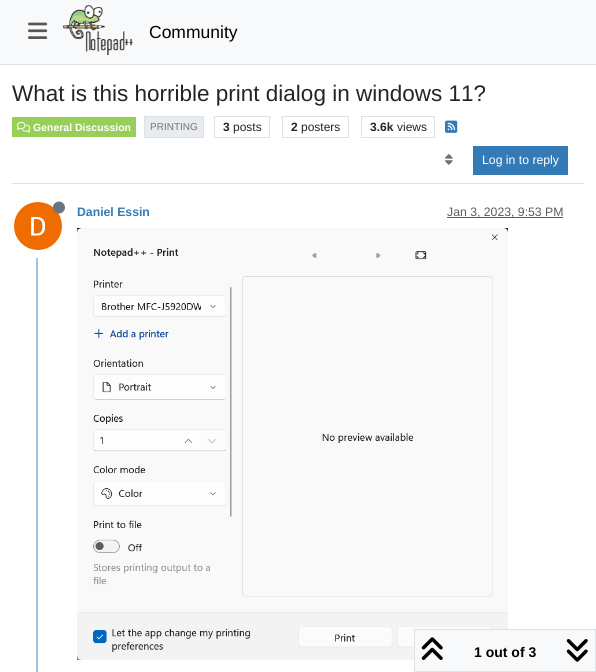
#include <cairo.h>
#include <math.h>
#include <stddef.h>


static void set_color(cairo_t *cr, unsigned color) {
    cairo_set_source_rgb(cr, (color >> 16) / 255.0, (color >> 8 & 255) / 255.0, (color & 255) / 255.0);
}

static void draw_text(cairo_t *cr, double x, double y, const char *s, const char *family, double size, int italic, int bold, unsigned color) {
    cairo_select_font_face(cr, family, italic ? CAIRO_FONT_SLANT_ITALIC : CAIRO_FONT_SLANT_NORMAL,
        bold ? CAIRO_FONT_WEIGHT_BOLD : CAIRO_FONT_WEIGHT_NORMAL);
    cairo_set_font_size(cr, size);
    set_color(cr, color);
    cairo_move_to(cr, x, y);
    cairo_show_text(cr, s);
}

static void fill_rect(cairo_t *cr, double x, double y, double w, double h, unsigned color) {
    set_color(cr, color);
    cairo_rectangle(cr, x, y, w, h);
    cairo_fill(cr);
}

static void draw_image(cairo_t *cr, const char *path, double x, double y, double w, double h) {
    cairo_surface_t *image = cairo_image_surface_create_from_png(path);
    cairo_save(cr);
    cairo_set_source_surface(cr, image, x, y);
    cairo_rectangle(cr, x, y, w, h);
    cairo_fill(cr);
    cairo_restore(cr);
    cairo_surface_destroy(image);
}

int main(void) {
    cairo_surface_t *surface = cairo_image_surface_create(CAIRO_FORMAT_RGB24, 596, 672);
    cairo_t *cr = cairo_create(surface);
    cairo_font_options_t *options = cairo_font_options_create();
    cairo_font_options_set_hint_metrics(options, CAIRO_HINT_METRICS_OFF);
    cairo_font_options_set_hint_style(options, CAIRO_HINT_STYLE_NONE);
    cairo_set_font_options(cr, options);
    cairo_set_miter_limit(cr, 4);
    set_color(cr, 0xFFFFFF);
    cairo_paint(cr);
    fill_rect(cr, 0, 0, 596, 64, 0xF8F9FA);
    fill_rect(cr, 0, 64, 596, 1, 0xDEE2E6);
    draw_image(cr, "assets/img1.png", 28, 22, 20, 17);
    draw_image(cr, "assets/img2.png", 63, 5, 71, 50);
    draw_text(cr, 149, 38, "Community", "Liberation Sans", 17.5, 0, 0, 0x000000);
    fill_rect(cr, 12, 183, 572, 1, 0xDEE2E6);
    draw_text(cr, 12, 101, "What is this horrible print dialog in windows 11?", "Liberation Sans", 22.5, 0, 0, 0x212529);
    fill_rect(cr, 12, 117, 124, 20, 0x98CF59);
    draw_image(cr, "assets/img3.png", 17, 121, 14, 12);
    draw_text(cr, 33, 131, "General Discussion", "Liberation Sans", 10.5, 0, 1, 0xFFFFFF);
    set_color(cr, 0xE9ECEF);
    cairo_rectangle(cr, 144.5, 116.5, 59, 21);
    cairo_fill_preserve(cr);
    set_color(cr, 0xDEE2E6);
    cairo_set_line_width(cr, 1);
    cairo_stroke(cr);
    draw_text(cr, 150, 130, "PRINTING", "Liberation Sans", 10, 0, 0, 0x6C757D);
    cairo_rectangle(cr, 214.5, 116.5, 55, 21);
    set_color(cr, 0xDEE2E6);
    cairo_stroke(cr);
    draw_text(cr, 223, 131, "3", "Liberation Sans", 12, 0, 1, 0x212529);
    draw_text(cr, 233, 131, "posts", "Liberation Sans", 12, 0, 0, 0x212529);
    cairo_rectangle(cr, 282.5, 116.5, 66, 21);
    set_color(cr, 0xDEE2E6);
    cairo_stroke(cr);
    draw_text(cr, 291, 131, "2", "Liberation Sans", 12, 0, 1, 0x212529);
    draw_text(cr, 301, 131, "posters", "Liberation Sans", 12, 0, 0, 0x212529);
    cairo_rectangle(cr, 361.5, 116.5, 73, 21);
    set_color(cr, 0xDEE2E6);
    cairo_stroke(cr);
    draw_text(cr, 370, 131, "3.6k", "Liberation Sans", 12, 0, 1, 0x212529);
    draw_text(cr, 397, 131, "views", "Liberation Sans", 12, 0, 0, 0x212529);
    draw_image(cr, "assets/img4.png", 445, 120, 13, 13);
    draw_image(cr, "assets/img5.png", 445, 154, 8, 11);
    fill_rect(cr, 473, 146, 95, 29, 0x337AB7);
    draw_text(cr, 482, 164, "Log in to reply", "Liberation Sans", 12.25, 0, 0, 0xFFFFFF);
    fill_rect(cr, 36, 200, 2, 472, 0xA0C4E4);
    cairo_new_path(cr);
    cairo_arc(cr, 38, 226, 28, 0, 2 * M_PI);
    set_color(cr, 0xFFFFFF);
    cairo_set_line_width(cr, 8);
    cairo_stroke(cr);
    draw_image(cr, "assets/img6.png", 14, 202, 48, 48);
    draw_image(cr, "assets/img7.png", 53, 201, 12, 13);
    draw_text(cr, 77, 216, "Daniel Essin", "Liberation Sans", 12.25, 0, 1, 0x337AB7);
    fill_rect(cr, 447, 217, 116, 1, 0x595C5F);
    draw_text(cr, 447, 216, "Jan 3, 2023, 9:53 PM", "Liberation Sans", 12.25, 0, 0, 0x585B5E);
    draw_image(cr, "assets/img8.png", 77, 228, 431, 432);
    set_color(cr, 0xF8F9FA);
    cairo_rectangle(cr, 414.5, 629.5, 181, 42);
    cairo_fill_preserve(cr);
    set_color(cr, 0xDEE2E6);
    cairo_set_line_width(cr, 1);
    cairo_stroke(cr);
    draw_image(cr, "assets/img9.png", 421, 637, 22, 23);
    draw_text(cr, 474, 657, "1 out of 3", "Liberation Sans", 14, 0, 1, 0x000000);
    draw_image(cr, "assets/img10.png", 566, 639, 22, 23);
    cairo_surface_write_to_png(surface, "output.png");
    cairo_font_options_destroy(options);
    cairo_destroy(cr);
    cairo_surface_destroy(surface);
    return 0;
}
